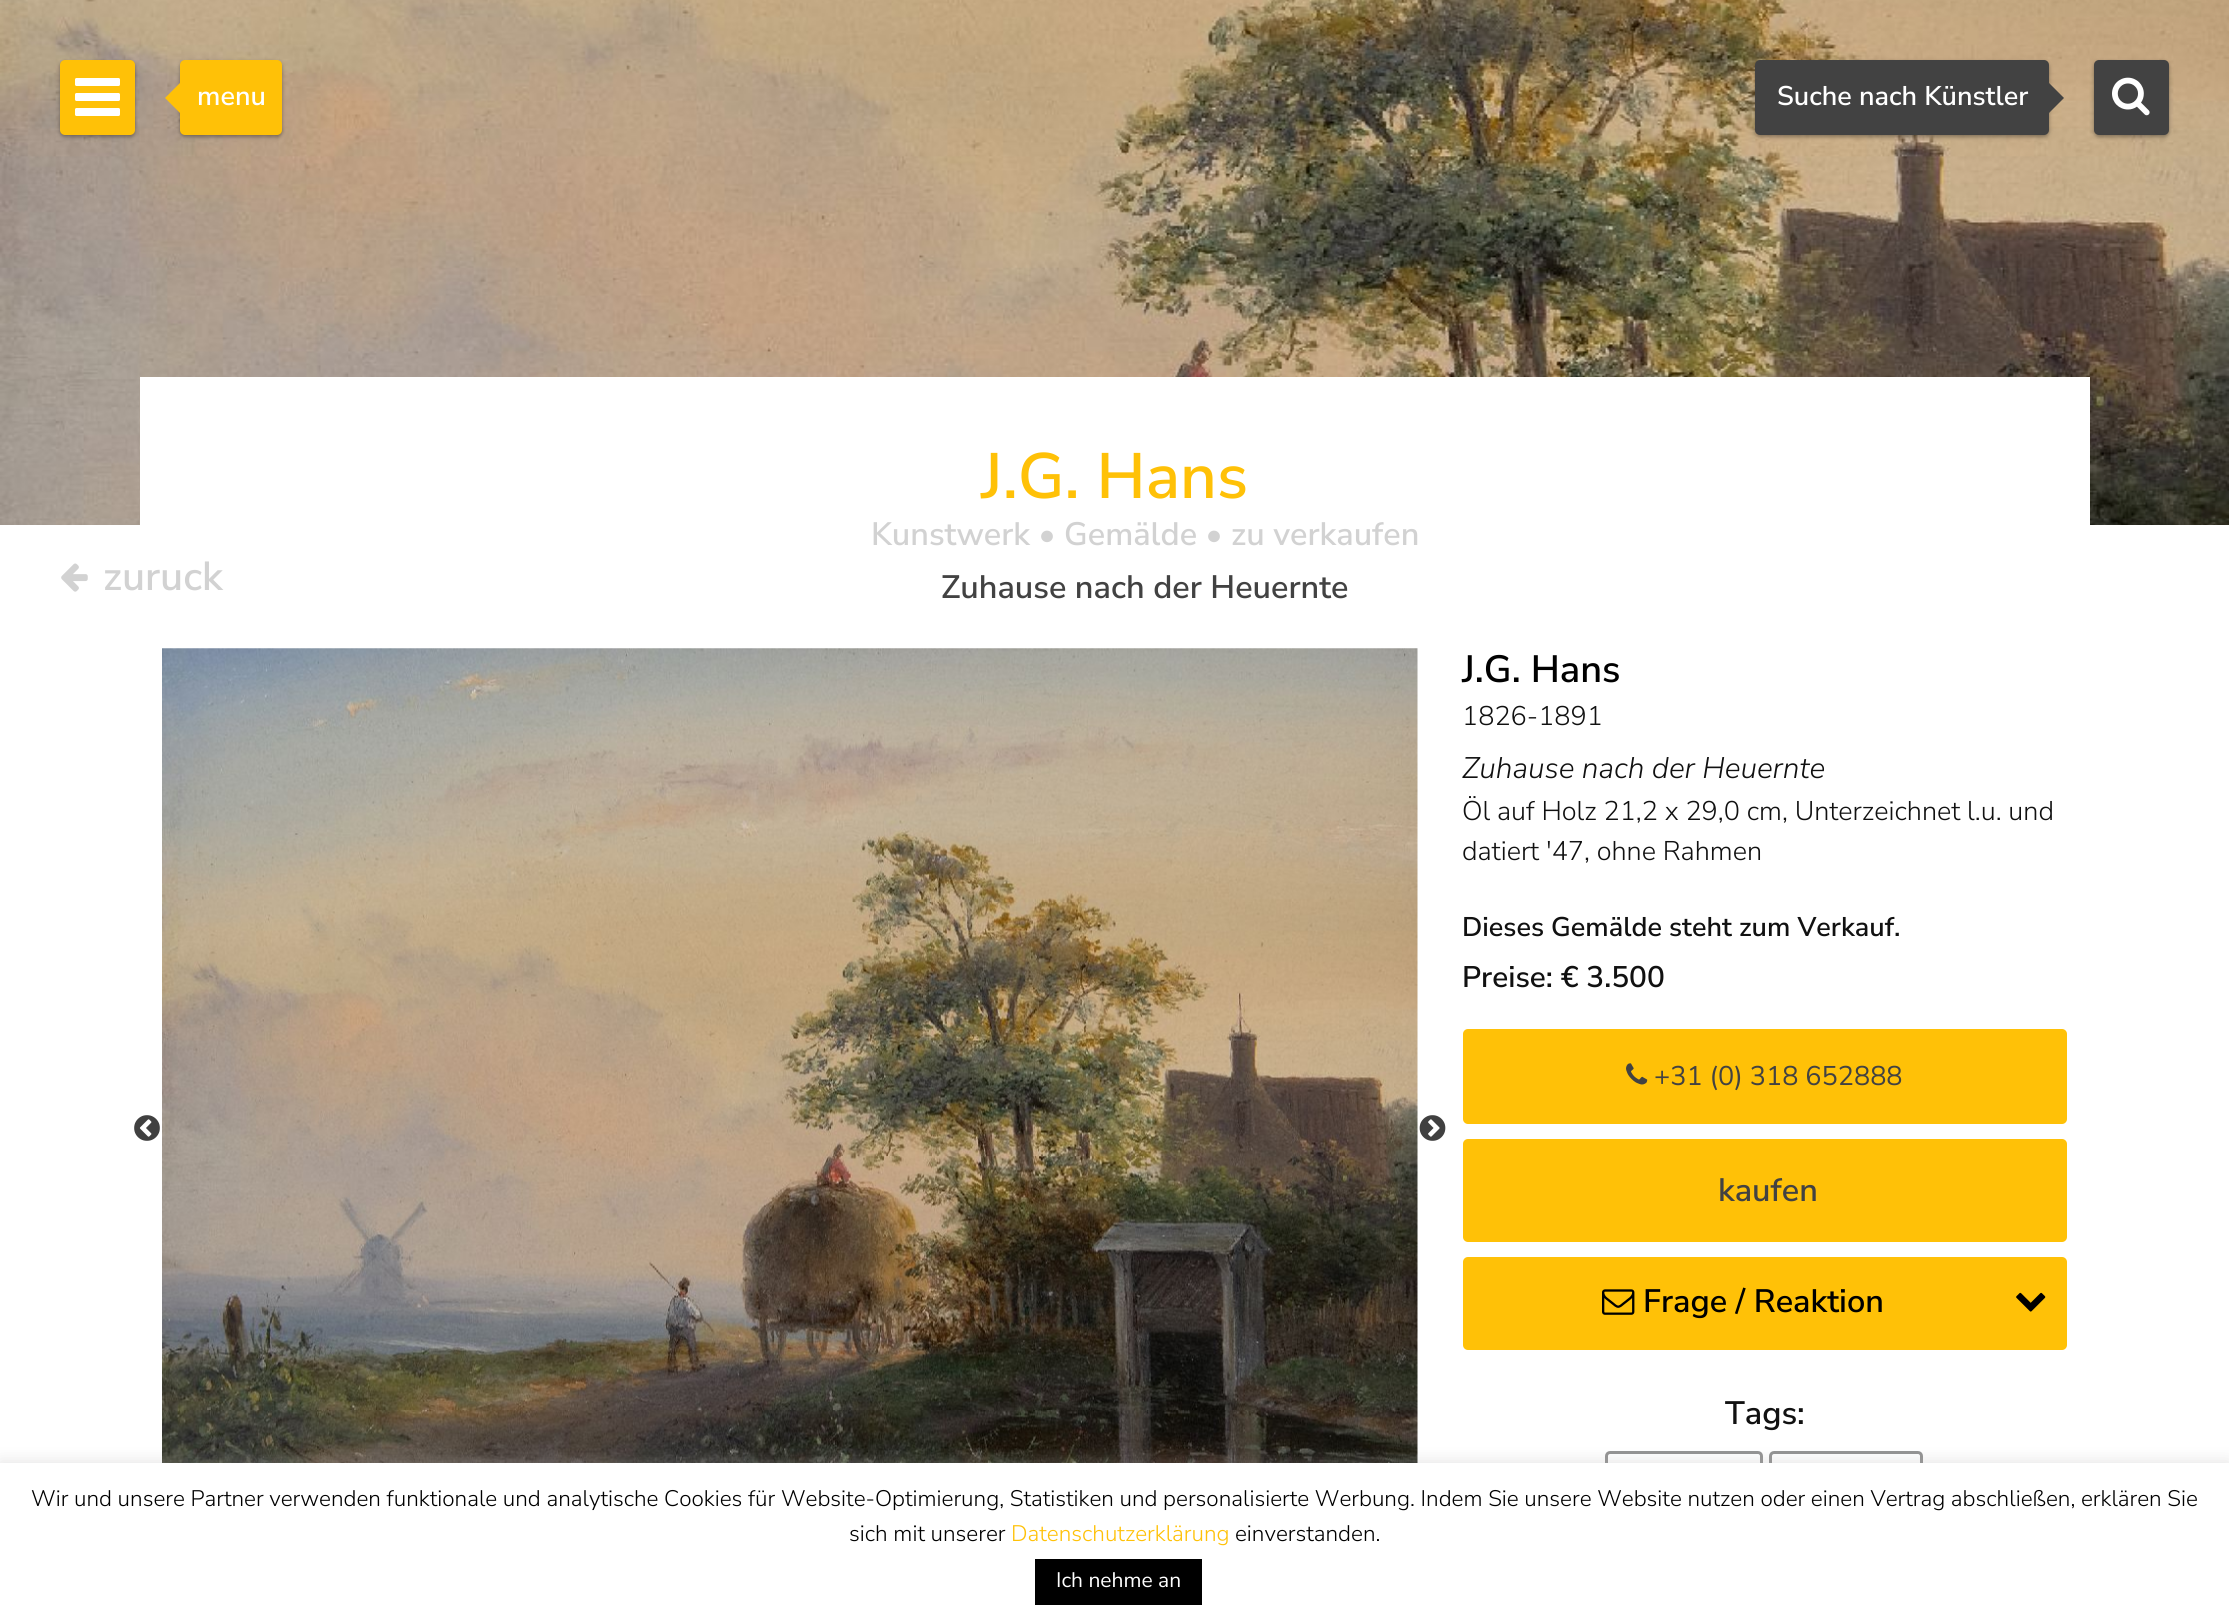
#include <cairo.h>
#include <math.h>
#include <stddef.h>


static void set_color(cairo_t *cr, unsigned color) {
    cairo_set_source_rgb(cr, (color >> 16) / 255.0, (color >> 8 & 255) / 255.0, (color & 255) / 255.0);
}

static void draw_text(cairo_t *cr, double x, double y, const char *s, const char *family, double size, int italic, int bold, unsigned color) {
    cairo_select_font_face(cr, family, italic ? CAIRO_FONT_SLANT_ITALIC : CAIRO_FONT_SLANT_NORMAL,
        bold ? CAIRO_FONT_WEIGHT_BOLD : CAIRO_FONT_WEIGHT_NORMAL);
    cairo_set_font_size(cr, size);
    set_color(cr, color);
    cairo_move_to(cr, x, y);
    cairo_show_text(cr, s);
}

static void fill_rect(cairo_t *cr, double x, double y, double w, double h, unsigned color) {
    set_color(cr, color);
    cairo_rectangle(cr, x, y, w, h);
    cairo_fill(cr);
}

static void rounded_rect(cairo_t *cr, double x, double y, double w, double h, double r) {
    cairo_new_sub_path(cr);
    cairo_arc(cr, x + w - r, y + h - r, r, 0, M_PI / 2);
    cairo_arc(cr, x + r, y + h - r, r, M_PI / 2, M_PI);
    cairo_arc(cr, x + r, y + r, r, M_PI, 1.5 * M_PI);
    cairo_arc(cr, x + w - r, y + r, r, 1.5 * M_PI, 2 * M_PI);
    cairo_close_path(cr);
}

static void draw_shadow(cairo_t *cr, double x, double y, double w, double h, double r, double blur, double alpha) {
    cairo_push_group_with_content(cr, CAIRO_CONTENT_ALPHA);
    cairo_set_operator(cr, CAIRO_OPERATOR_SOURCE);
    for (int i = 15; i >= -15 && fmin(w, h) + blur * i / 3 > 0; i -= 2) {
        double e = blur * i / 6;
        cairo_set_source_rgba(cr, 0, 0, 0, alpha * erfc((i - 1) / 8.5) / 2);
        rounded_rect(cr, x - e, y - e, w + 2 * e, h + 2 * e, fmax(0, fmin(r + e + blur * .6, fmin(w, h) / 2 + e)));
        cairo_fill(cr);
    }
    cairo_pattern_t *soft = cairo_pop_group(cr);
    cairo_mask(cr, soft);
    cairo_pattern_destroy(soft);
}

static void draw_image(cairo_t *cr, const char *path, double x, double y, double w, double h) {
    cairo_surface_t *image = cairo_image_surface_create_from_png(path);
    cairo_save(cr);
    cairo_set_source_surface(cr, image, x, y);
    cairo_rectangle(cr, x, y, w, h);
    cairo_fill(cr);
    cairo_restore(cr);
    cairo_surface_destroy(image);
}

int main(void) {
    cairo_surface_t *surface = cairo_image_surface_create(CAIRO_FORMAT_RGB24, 2229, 1622);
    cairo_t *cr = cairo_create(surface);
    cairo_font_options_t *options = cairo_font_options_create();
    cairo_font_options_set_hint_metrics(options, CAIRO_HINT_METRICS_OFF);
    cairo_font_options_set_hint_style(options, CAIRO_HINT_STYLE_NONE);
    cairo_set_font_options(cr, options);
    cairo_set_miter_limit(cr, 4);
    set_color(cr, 0xFFFFFF);
    cairo_paint(cr);
    draw_image(cr, "assets/img1.png", 0, 0, 2229, 525);
    set_color(cr, 0x000000);
    draw_shadow(cr, 60, 62, 75, 75, 5, 2, 0.35);
    set_color(cr, 0xFFC107);
    rounded_rect(cr, 60, 60, 75, 75, 5);
    cairo_fill(cr);
    set_color(cr, 0xFFFFFF);
    rounded_rect(cr, 75, 78, 45, 8, 1.5);
    cairo_fill(cr);
    rounded_rect(cr, 75, 93, 45, 8, 1.5);
    cairo_fill(cr);
    rounded_rect(cr, 75, 108, 45, 8, 1.5);
    cairo_fill(cr);
    set_color(cr, 0x000000);
    draw_shadow(cr, 180, 62, 102, 75, 5, 2, 0.35);
    set_color(cr, 0xFFC107);
    rounded_rect(cr, 180, 60, 102, 75, 5);
    cairo_fill(cr);
    cairo_new_path(cr);
    cairo_move_to(cr, 195, 68);
    cairo_line_to(cr, 195, 128);
    cairo_line_to(cr, 165, 98);
    cairo_close_path(cr);
    cairo_fill(cr);
    draw_text(cr, 197, 105, "menu", "Nunito Sans SemiBold", 27, 0, 0, 0xFFFFFF);
    set_color(cr, 0x000000);
    draw_shadow(cr, 1755, 62, 294, 75, 5, 2, 0.35);
    set_color(cr, 0x424242);
    rounded_rect(cr, 1755, 60, 294, 75, 5);
    cairo_fill(cr);
    draw_text(cr, 1777, 105, "Suche nach Künstler", "Nunito Sans SemiBold", 27, 0, 0, 0xFFFFFF);
    set_color(cr, 0x424242);
    cairo_new_path(cr);
    cairo_move_to(cr, 2034, 128);
    cairo_line_to(cr, 2034, 68);
    cairo_line_to(cr, 2064, 98);
    cairo_close_path(cr);
    cairo_fill(cr);
    set_color(cr, 0x000000);
    draw_shadow(cr, 2094, 62, 75, 75, 5, 2, 0.35);
    set_color(cr, 0x424242);
    rounded_rect(cr, 2094, 60, 75, 75, 5);
    cairo_fill(cr);
    draw_image(cr, "assets/img2.png", 2112, 77, 38, 39);
    draw_image(cr, "assets/img3.png", 61, 563, 27, 29);
    draw_text(cr, 103, 590, "zuruck", "Nunito Sans SemiBold", 40.5, 0, 0, 0xD2D2D2);
    fill_rect(cr, 140, 377, 1950, 148, 0xFFFFFF);
    draw_text(cr, 981, 498, "J.G. Hans", "Nunito Sans SemiBold", 64, 0, 0, 0xFFC107);
    draw_text(cr, 871, 545, "Kunstwerk • Gemälde • zu verkaufen", "Nunito Sans SemiBold", 32.4, 0, 0, 0xD2D2D2);
    draw_text(cr, 941, 598, "Zuhause nach der Heuernte", "Nunito Sans SemiBold", 32.4, 0, 0, 0x424242);
    draw_image(cr, "assets/img4.png", 134, 1115, 26, 26);
    draw_image(cr, "assets/img5.png", 162, 648, 1256, 815);
    draw_image(cr, "assets/img6.png", 1419, 1115, 27, 26);
    draw_text(cr, 1462, 682, "J.G. Hans", "Nunito Sans SemiBold", 38, 0, 0, 0x000000);
    draw_text(cr, 1462, 725, "1826-1891", "Nunito Sans Light", 27, 0, 0, 0x111111);
    draw_text(cr, 1462, 778, "Zuhause nach der Heuernte", "Nunito Sans Light", 29.75, 1, 0, 0x111111);
    draw_text(cr, 1462, 820, "Öl auf Holz 21,2 x 29,0 cm, Unterzeichnet l.u. und", "Nunito Sans Light", 27, 0, 0, 0x111111);
    draw_text(cr, 1462, 860, "datiert '47, ohne Rahmen", "Nunito Sans Light", 27, 0, 0, 0x111111);
    draw_text(cr, 1462, 936, "Dieses Gemälde steht zum Verkauf.", "Nunito Sans SemiBold", 27, 0, 0, 0x111111);
    draw_text(cr, 1462, 987, "Preise: € 3.500", "Nunito Sans SemiBold", 29.75, 0, 0, 0x111111);
    set_color(cr, 0xFFC107);
    rounded_rect(cr, 1463, 1029, 604, 95, 5);
    cairo_fill(cr);
    draw_image(cr, "assets/img7.png", 1626, 1063, 22, 22);
    draw_text(cr, 1654, 1085, "+31 (0) 318 652888", "Nunito Sans", 27, 0, 0, 0x424242);
    set_color(cr, 0xFFC107);
    rounded_rect(cr, 1463, 1139, 604, 103, 5);
    cairo_fill(cr);
    draw_text(cr, 1718, 1201, "kaufen", "Nunito Sans SemiBold", 32.4, 0, 0, 0x424242);
    set_color(cr, 0xFFC107);
    rounded_rect(cr, 1463, 1257, 604, 93, 5);
    cairo_fill(cr);
    draw_image(cr, "assets/img8.png", 1602, 1289, 33, 26);
    draw_text(cr, 1643, 1312, "Frage / Reaktion", "Nunito Sans SemiBold", 32.4, 0, 0, 0x000000);
    draw_image(cr, "assets/img9.png", 2016, 1292, 30, 20);
    draw_text(cr, 1725, 1424, "Tags:", "Nunito Sans SemiBold", 32.4, 0, 0, 0x111111);
    rounded_rect(cr, 1606.5, 1452.5, 155, 48, 3.5);
    set_color(cr, 0x929292);
    cairo_set_line_width(cr, 3);
    cairo_stroke(cr);
    rounded_rect(cr, 1770.5, 1452.5, 151, 48, 3.5);
    cairo_stroke(cr);
    set_color(cr, 0xACABAB);
    draw_shadow(cr, 0, 1461, 2229, 161, 0, 7.5, 0.3);
    fill_rect(cr, 0, 1463, 2229, 159, 0xFFFFFF);
    draw_text(cr, 31, 1506, "Wir und unsere Partner verwenden funktionale und analytische Cookies für Website-Optimierung, Statistiken und personalisierte Werbung. Indem Sie unsere Website nutzen oder einen Vertrag abschließen, erklären Sie", "Nunito Sans Light", 22.5, 0, 0, 0x000000);
    draw_text(cr, 849, 1541, "sich mit unserer", "Nunito Sans Light", 22.5, 0, 0, 0x000000);
    draw_text(cr, 1011, 1541, "Datenschutzerklärung", "Nunito Sans Light", 22.5, 0, 0, 0xFFC107);
    draw_text(cr, 1235, 1541, "einverstanden.", "Nunito Sans Light", 22.5, 0, 0, 0x000000);
    fill_rect(cr, 1035, 1559, 167, 46, 0x000000);
    draw_text(cr, 1056, 1587, "Ich nehme an", "Nunito Sans", 21, 0, 0, 0xFFFFFF);
    cairo_surface_write_to_png(surface, "output.png");
    cairo_font_options_destroy(options);
    cairo_destroy(cr);
    cairo_surface_destroy(surface);
    return 0;
}
